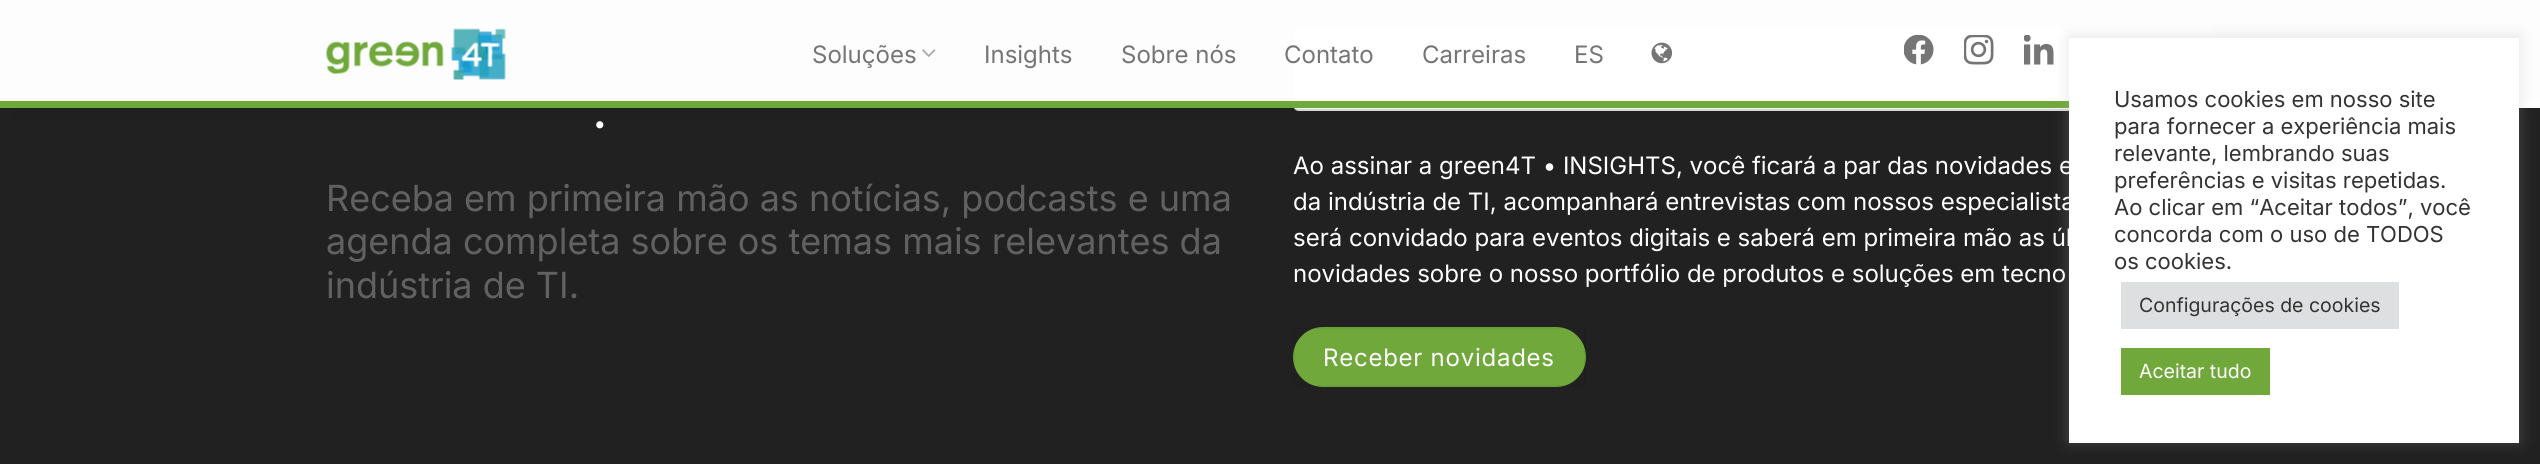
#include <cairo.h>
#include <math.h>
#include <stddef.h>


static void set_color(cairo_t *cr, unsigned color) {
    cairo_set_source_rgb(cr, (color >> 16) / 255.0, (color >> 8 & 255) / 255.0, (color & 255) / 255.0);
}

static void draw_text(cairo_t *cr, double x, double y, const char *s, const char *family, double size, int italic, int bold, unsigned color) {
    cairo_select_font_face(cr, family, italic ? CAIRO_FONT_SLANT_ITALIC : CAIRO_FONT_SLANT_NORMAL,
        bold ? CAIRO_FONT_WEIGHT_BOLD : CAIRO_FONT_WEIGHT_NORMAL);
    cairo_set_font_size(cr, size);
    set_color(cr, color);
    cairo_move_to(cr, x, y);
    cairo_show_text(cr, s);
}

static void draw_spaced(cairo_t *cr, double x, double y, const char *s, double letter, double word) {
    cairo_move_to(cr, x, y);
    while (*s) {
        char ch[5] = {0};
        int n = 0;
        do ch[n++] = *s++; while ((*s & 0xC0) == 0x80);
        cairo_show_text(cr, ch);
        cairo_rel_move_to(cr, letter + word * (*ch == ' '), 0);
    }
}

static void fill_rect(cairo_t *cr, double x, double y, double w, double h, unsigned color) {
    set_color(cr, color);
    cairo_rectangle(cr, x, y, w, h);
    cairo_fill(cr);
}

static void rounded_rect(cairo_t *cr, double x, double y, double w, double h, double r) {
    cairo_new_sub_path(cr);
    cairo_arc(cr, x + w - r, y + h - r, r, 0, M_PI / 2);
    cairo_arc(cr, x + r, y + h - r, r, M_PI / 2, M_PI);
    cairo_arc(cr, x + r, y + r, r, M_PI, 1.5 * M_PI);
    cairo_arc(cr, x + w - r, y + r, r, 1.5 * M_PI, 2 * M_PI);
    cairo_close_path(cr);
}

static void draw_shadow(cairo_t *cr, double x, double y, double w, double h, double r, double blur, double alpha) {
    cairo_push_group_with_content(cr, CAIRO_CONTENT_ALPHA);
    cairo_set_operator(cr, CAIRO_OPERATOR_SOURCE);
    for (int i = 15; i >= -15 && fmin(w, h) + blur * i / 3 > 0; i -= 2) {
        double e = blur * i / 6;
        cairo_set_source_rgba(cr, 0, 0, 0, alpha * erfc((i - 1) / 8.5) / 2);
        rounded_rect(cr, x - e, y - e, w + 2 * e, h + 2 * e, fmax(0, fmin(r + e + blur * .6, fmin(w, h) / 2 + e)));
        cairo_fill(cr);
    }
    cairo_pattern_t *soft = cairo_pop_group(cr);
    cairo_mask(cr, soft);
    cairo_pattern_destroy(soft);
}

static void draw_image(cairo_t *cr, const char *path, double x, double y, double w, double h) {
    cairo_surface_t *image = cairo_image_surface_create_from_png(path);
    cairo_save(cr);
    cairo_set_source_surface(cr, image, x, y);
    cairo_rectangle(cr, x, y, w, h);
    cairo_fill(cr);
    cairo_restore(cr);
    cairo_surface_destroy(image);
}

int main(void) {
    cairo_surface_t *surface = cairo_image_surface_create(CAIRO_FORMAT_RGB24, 2540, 464);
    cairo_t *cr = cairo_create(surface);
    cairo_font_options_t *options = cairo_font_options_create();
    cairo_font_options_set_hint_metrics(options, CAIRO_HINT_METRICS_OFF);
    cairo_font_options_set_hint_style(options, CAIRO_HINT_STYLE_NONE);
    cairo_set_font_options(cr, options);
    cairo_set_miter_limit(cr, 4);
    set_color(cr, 0x212121);
    cairo_paint(cr);
    set_color(cr, 0xFFFFFF);
    rounded_rect(cr, 1294, 28, 921, 82, 5);
    cairo_fill_preserve(cr);
    set_color(cr, 0xE0E0E0);
    cairo_stroke(cr);
    cairo_save(cr);
    cairo_rectangle(cr, 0, 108, 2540, 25);
    cairo_clip(cr);
    set_color(cr, 0x191919);
    draw_shadow(cr, 0, 23, 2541, 108, 0, 7.5, 0.05);
    cairo_restore(cr);
    cairo_set_source_rgba(cr, 1, 1, 1, 0.9);
    cairo_rectangle(cr, 0, 0, 2540, 101);
    cairo_fill(cr);
    cairo_rectangle(cr, 0, 0, 2540, 101);
    cairo_fill(cr);
    draw_image(cr, "assets/img1.png", 326, 28, 180, 52);
    draw_text(cr, 812, 63, "Soluções", "Inter", 24, 0, 0, 0x757575);
    draw_image(cr, "assets/img2.png", 922, 49, 14, 8);
    draw_text(cr, 984, 63, "Insights", "Inter", 24, 0, 0, 0x757575);
    draw_text(cr, 1121, 63, "Sobre nós", "Inter", 24, 0, 0, 0x757575);
    draw_text(cr, 1284, 63, "Contato", "Inter", 24, 0, 0, 0x757575);
    draw_text(cr, 1422, 63, "Carreiras", "Inter", 24, 0, 0, 0x757575);
    draw_text(cr, 1574, 63, "ES", "Inter", 24, 0, 0, 0x757575);
    draw_image(cr, "assets/img3.png", 1651, 42, 22, 22);
    draw_image(cr, "assets/img4.png", 1904, 35, 30, 30);
    draw_image(cr, "assets/img5.png", 1964, 35, 30, 30);
    draw_image(cr, "assets/img6.png", 2024, 35, 30, 30);
    fill_rect(cr, 2519, 101, 21, 7, 0xFFFFFF);
    fill_rect(cr, 0, 101, 2069, 7, 0x70A83B);
    draw_text(cr, 592, 128, ".", "Inter", 54, 0, 0, 0xFFFFFF);
    draw_text(cr, 326, 211, "Receba em primeira mão as notícias, podcasts e uma", "Inter", 36, 0, 0, 0x616161);
    draw_text(cr, 326, 254, "agenda completa sobre os temas mais relevantes da", "Inter", 36, 0, 0, 0x616161);
    draw_text(cr, 326, 298, "indústria de TI.", "Inter", 36, 0, 0, 0x616161);
    draw_text(cr, 1293, 174, "Ao assinar a green4T • INSIGHTS, você ficará a par das novidades e", "Inter", 24, 0, 0, 0xFFFFFF);
    draw_text(cr, 1293, 210, "da indústria de TI, acompanhará entrevistas com nossos especialista", "Inter", 24, 0, 0, 0xFFFFFF);
    draw_text(cr, 1293, 246, "será convidado para eventos digitais e saberá em primeira mão as úl", "Inter", 24, 0, 0, 0xFFFFFF);
    draw_text(cr, 1293, 282, "novidades sobre o nosso portfólio de produtos e soluções em tecno", "Inter", 24, 0, 0, 0xFFFFFF);
    set_color(cr, 0x70A83B);
    rounded_rect(cr, 1293, 327, 293, 60, 30);
    cairo_fill(cr);
    cairo_rectangle(cr, 1294, 328, 291, 58);
    cairo_set_source_rgba(cr, 0, 0, 0, 0.05);
    cairo_stroke(cr);
    set_color(cr, 0xFFFFFF);
    draw_spaced(cr, 1323, 366, "Receber novidades", 0.75, 0);
    set_color(cr, 0xACABAB);
    draw_shadow(cr, 2069, 36, 450, 405, 0, 7.5, 0.3);
    fill_rect(cr, 2069, 38, 450, 405, 0xFFFFFF);
    draw_text(cr, 2114, 107, "Usamos cookies em nosso site", "Inter", 22, 0, 0, 0x333333);
    draw_text(cr, 2114, 134, "para fornecer a experiência mais", "Inter", 22, 0, 0, 0x333333);
    draw_text(cr, 2114, 161, "relevante, lembrando suas", "Inter", 22, 0, 0, 0x333333);
    draw_text(cr, 2114, 188, "preferências e visitas repetidas.", "Inter", 22, 0, 0, 0x333333);
    draw_text(cr, 2114, 215, "Ao clicar em “Aceitar todos”, você", "Inter", 22, 0, 0, 0x333333);
    draw_text(cr, 2114, 242, "concorda com o uso de TODOS", "Inter", 22, 0, 0, 0x333333);
    draw_text(cr, 2114, 269, "os cookies.", "Inter", 22, 0, 0, 0x333333);
    fill_rect(cr, 2121, 282, 278, 47, 0xDEDFE0);
    draw_text(cr, 2139, 312, "Configurações de cookies", "Inter", 19.5, 0, 0, 0x333333);
    fill_rect(cr, 2121, 348, 149, 47, 0x70A83B);
    draw_text(cr, 2139, 378, "Aceitar tudo", "Inter", 19.5, 0, 0, 0xFFFFFF);
    cairo_surface_write_to_png(surface, "output.png");
    cairo_font_options_destroy(options);
    cairo_destroy(cr);
    cairo_surface_destroy(surface);
    return 0;
}
